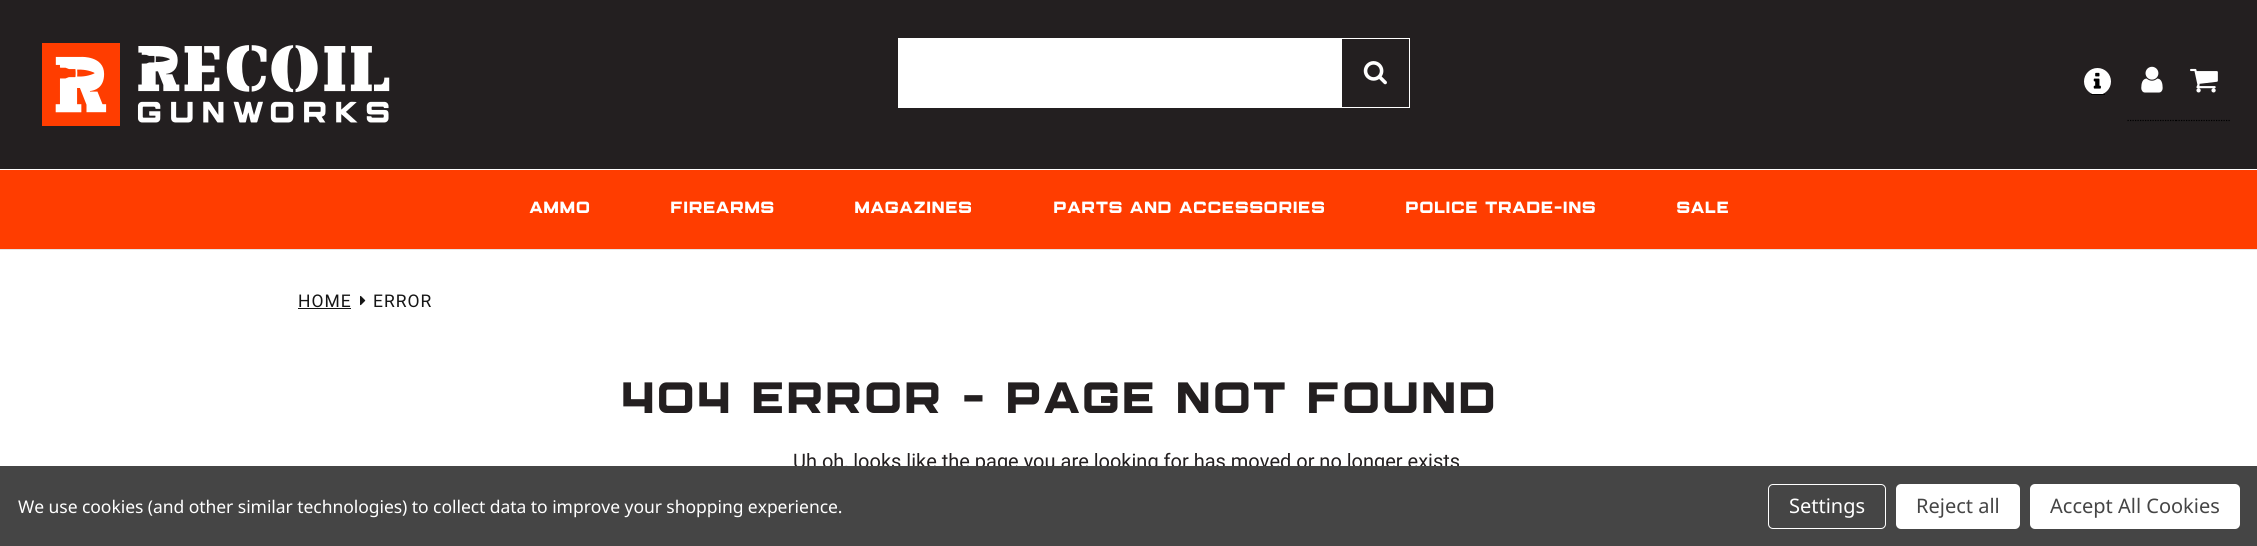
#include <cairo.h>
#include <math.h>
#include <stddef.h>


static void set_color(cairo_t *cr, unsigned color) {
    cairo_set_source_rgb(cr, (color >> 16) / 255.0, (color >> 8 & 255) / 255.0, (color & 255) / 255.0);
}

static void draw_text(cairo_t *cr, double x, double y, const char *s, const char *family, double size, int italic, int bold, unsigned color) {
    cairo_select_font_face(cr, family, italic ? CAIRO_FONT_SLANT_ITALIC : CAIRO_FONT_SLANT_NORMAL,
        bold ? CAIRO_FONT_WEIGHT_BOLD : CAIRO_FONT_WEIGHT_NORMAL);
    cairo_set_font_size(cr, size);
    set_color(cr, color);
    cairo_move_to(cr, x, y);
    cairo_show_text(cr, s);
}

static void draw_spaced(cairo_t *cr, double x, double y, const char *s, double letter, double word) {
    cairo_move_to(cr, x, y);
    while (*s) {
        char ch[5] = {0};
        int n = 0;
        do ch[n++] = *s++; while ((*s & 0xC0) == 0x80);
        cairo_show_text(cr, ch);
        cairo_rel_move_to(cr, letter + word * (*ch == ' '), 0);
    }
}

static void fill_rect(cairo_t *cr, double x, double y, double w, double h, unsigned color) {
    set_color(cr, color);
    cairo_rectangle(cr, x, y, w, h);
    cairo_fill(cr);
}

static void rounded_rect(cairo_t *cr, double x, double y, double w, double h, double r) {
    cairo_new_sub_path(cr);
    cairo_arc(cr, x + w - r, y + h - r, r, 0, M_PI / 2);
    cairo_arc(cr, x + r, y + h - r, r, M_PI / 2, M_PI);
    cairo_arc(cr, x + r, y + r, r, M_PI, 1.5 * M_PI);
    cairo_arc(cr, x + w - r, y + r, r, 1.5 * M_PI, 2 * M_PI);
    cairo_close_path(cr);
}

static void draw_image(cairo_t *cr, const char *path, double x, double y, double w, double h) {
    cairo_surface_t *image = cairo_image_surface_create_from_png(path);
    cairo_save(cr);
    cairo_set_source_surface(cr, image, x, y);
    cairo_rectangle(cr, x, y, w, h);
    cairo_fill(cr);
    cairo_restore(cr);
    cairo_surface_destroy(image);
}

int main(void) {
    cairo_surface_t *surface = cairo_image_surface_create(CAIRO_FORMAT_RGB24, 2257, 546);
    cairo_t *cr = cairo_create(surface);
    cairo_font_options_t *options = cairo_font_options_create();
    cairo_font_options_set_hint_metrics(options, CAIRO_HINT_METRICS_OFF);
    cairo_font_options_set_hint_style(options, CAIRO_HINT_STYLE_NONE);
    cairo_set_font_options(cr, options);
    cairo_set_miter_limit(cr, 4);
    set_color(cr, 0xFFFFFF);
    cairo_paint(cr);
    fill_rect(cr, 0, 0, 2257, 169, 0x231F20);
    fill_rect(cr, 0, 249, 2257, 1, 0xE5E5E5);
    draw_image(cr, "assets/img1.png", 42, 43, 348, 83);
    fill_rect(cr, 898, 38, 443, 70, 0xFFFFFF);
    cairo_rectangle(cr, 1341.5, 38.5, 68, 69);
    cairo_set_line_width(cr, 1);
    cairo_stroke(cr);
    draw_image(cr, "assets/img2.png", 1363, 61, 24, 24);
    cairo_arc(cr, 2097.5, 81.5, 13.5, 0, 2 * M_PI);
    cairo_fill(cr);
    fill_rect(cr, 2091, 94, 14, 1, 0x000000);
    draw_image(cr, "assets/img3.png", 2093, 72, 8, 17);
    cairo_new_path(cr);
    cairo_move_to(cr, 2127.5, 120.5);
    cairo_line_to(cr, 2176, 120.5);
    cairo_set_line_width(cr, 1.2);
    cairo_set_dash(cr, (double[]){1.25, 1.25}, 2, 0);
    cairo_stroke(cr);
    draw_image(cr, "assets/img4.png", 2141, 66, 22, 27);
    cairo_new_path(cr);
    cairo_move_to(cr, 2176, 120.5);
    cairo_line_to(cr, 2231, 120.5);
    cairo_stroke(cr);
    draw_image(cr, "assets/img5.png", 2190, 68, 28, 25);
    fill_rect(cr, 0, 170, 2257, 79, 0xFF3D00);
    draw_text(cr, 529, 213, "AMMO", "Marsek", 16.25, 0, 1, 0xFFFFFF);
    draw_text(cr, 670, 213, "FIREARMS", "Marsek", 16.25, 0, 1, 0xFFFFFF);
    draw_text(cr, 854, 213, "MAGAZINES", "Marsek", 16.25, 0, 1, 0xFFFFFF);
    draw_text(cr, 1053, 213, "PARTS AND ACCESSORIES", "Marsek", 16.25, 0, 1, 0xFFFFFF);
    draw_text(cr, 1405, 213, "POLICE TRADE-INS", "Marsek", 16.25, 0, 1, 0xFFFFFF);
    draw_text(cr, 1676, 213, "SALE", "Marsek", 16.25, 0, 1, 0xFFFFFF);
    cairo_select_font_face(cr, "Roboto", CAIRO_FONT_SLANT_NORMAL, CAIRO_FONT_WEIGHT_NORMAL);
    cairo_set_font_size(cr, 17.5);
    set_color(cr, 0x151515);
    draw_spaced(cr, 298, 307, "HOME", 1, 0);
    fill_rect(cr, 298, 308, 53, 1, 0x151515);
    draw_image(cr, "assets/img6.png", 360, 295, 6, 11);
    draw_spaced(cr, 373, 307, "ERROR", 1, 0);
    cairo_select_font_face(cr, "Marsek", CAIRO_FONT_SLANT_NORMAL, CAIRO_FONT_WEIGHT_BOLD);
    cairo_set_font_size(cr, 43.75);
    set_color(cr, 0x231F20);
    draw_spaced(cr, 620, 413, "404 Error - Page not found", 0.3, 0);
    draw_text(cr, 793, 468, "Uh oh, looks like the page you are looking for has moved or no longer exists", "Roboto", 20, 0, 0, 0x231F20);
    fill_rect(cr, 0, 466, 2257, 80, 0x454545);
    cairo_select_font_face(cr, "Noto Sans", CAIRO_FONT_SLANT_NORMAL, CAIRO_FONT_WEIGHT_NORMAL);
    cairo_set_font_size(cr, 17.5);
    set_color(cr, 0xFFFFFF);
    draw_spaced(cr, 18, 513, "We use cookies (and other similar technologies) to collect data to improve your shopping experience.", -0.05, 0);
    rounded_rect(cr, 1768.5, 484.5, 117, 44, 4.5);
    cairo_set_line_width(cr, 1);
    cairo_set_dash(cr, NULL, 0, 0);
    cairo_stroke(cr);
    draw_text(cr, 1789, 513, "Settings", "Noto Sans", 20, 0, 0, 0xFFFFFF);
    rounded_rect(cr, 1896, 484, 124, 45, 5);
    cairo_fill(cr);
    draw_text(cr, 1916, 513, "Reject all", "Noto Sans", 20, 0, 0, 0x454545);
    set_color(cr, 0xFFFFFF);
    rounded_rect(cr, 2030, 484, 210, 45, 5);
    cairo_fill(cr);
    draw_text(cr, 2050, 513, "Accept All Cookies", "Noto Sans", 20, 0, 0, 0x454545);
    cairo_surface_write_to_png(surface, "output.png");
    cairo_font_options_destroy(options);
    cairo_destroy(cr);
    cairo_surface_destroy(surface);
    return 0;
}
